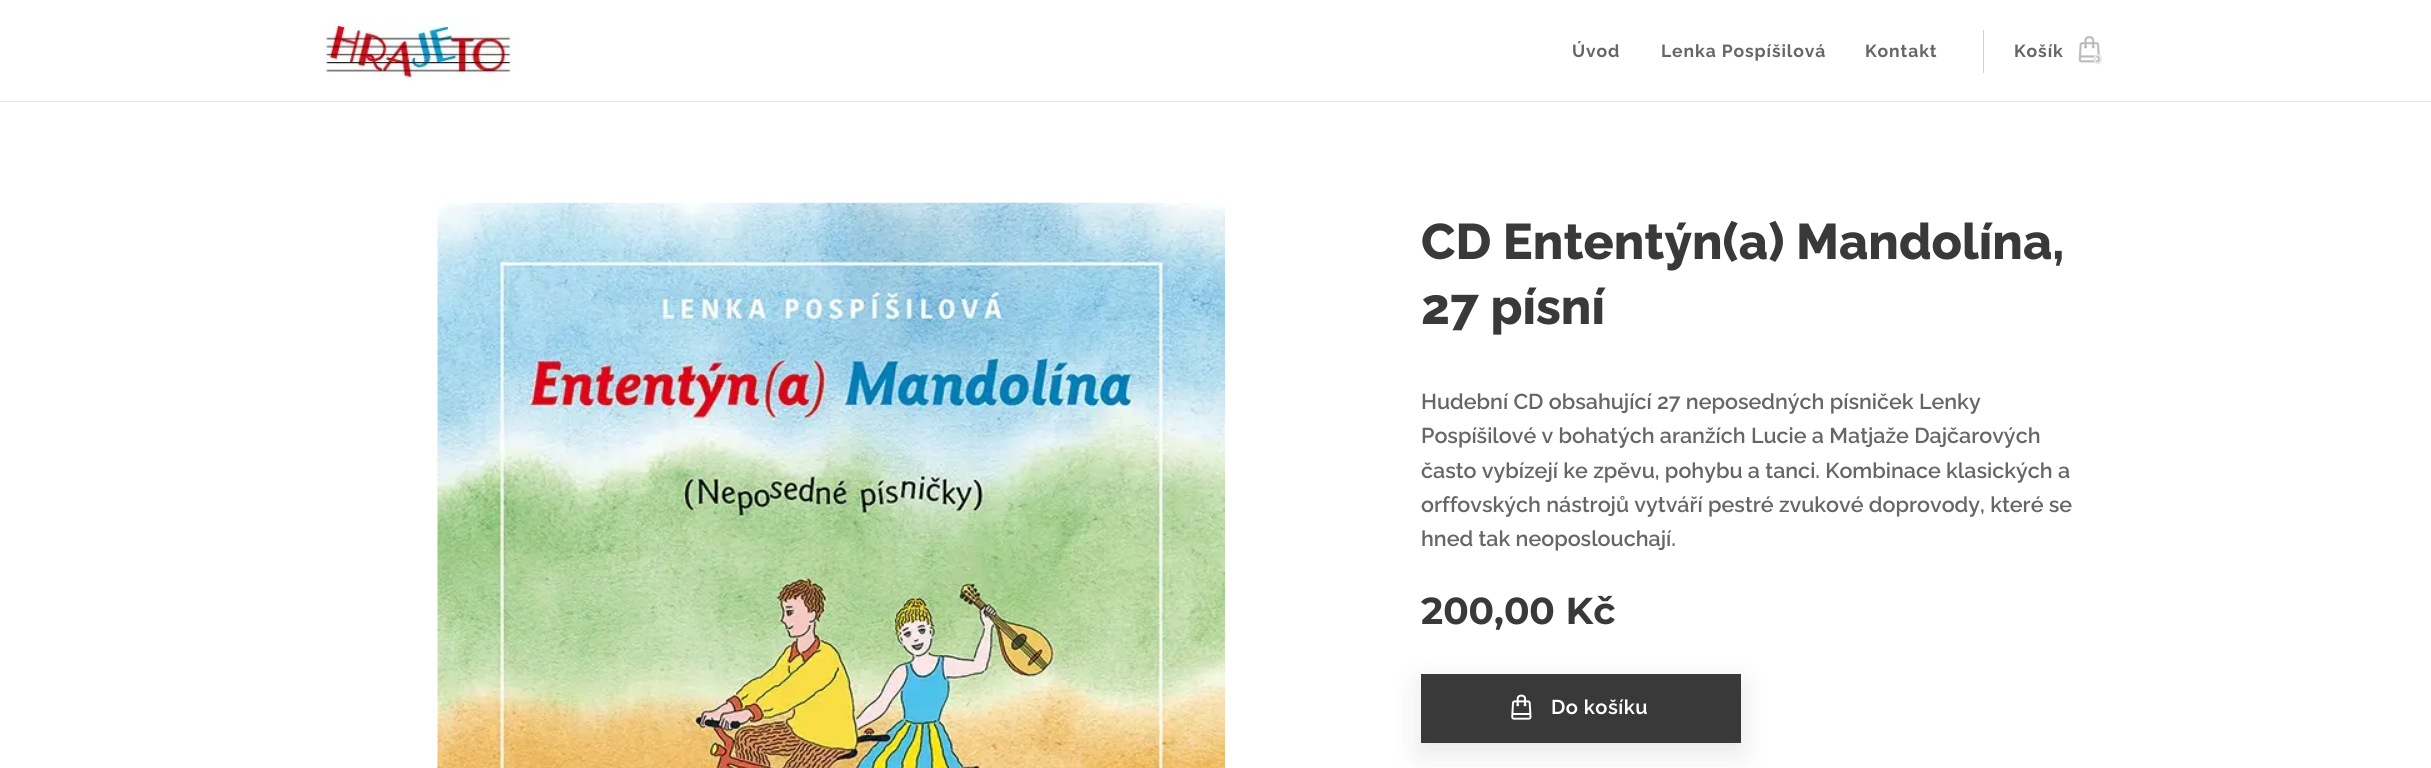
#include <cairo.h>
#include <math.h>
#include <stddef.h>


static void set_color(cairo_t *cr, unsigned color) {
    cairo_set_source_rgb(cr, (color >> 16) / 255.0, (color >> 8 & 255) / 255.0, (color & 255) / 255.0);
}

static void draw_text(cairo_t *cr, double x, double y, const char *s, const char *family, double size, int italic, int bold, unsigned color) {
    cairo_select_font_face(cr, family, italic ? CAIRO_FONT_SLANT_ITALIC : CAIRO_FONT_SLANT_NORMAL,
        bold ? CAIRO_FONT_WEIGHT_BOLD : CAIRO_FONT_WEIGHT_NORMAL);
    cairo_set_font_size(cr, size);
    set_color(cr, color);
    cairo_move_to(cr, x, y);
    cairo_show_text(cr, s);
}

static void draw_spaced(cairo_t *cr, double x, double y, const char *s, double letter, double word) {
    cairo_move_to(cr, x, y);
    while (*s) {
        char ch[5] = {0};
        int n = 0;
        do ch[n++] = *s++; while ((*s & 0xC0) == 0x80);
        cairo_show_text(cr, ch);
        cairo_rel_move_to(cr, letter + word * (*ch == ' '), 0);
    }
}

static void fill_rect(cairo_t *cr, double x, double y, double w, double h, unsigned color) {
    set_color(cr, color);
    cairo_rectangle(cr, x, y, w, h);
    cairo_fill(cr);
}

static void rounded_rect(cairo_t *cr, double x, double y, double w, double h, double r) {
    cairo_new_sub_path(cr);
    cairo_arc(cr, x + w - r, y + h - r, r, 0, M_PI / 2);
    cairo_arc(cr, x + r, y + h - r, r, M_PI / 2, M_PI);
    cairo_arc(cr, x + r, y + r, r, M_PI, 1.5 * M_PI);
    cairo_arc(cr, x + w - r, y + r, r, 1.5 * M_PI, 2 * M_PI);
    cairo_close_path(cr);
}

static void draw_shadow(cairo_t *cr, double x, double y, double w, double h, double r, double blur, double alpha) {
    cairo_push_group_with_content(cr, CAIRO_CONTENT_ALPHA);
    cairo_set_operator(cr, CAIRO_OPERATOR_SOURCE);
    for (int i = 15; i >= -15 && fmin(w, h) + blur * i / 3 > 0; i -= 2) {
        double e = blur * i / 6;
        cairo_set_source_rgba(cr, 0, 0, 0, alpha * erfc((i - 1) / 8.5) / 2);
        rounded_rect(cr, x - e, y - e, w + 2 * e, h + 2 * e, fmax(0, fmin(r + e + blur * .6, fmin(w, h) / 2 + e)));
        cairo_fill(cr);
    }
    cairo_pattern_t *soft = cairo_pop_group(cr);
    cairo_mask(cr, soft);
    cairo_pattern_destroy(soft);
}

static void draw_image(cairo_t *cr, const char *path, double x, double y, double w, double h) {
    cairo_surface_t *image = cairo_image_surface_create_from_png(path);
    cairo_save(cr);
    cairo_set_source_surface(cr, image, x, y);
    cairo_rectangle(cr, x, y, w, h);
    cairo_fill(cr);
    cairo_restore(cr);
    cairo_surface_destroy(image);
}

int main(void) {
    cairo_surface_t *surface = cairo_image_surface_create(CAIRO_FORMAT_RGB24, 2431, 768);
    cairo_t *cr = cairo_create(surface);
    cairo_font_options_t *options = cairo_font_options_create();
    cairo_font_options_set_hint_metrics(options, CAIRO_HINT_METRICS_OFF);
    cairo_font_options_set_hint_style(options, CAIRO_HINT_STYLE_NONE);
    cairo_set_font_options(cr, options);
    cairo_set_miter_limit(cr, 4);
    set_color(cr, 0xFFFFFF);
    cairo_paint(cr);
    draw_image(cr, "assets/img1.png", 324, 21, 190, 60);
    cairo_select_font_face(cr, "Raleway", CAIRO_FONT_SLANT_NORMAL, CAIRO_FONT_WEIGHT_BOLD);
    cairo_set_font_size(cr, 17.5);
    set_color(cr, 0x666666);
    draw_spaced(cr, 1572, 57, "Úvod", 0.9, 0);
    draw_spaced(cr, 1661, 57, "Lenka Pospíšilová", 0.9, 0);
    draw_spaced(cr, 1865, 57, "Kontakt", 0.9, 0);
    fill_rect(cr, 1983, 30, 1, 43, 0xD1D1D1);
    set_color(cr, 0x666666);
    draw_spaced(cr, 2014, 57, "Košík", 0.9, 0);
    draw_image(cr, "assets/img2.png", 2078, 36, 22, 27);
    draw_text(cr, 2093, 64, "0", "Montserrat", 14, 0, 1, 0xE8E8E8);
    fill_rect(cr, 0, 101, 2431, 1, 0xE8E8E8);
    draw_image(cr, "assets/img3.png", 437, 202, 788, 566);
    draw_text(cr, 1421, 259, "CD Ententýn(a) Mandolína,", "Raleway ExtraBold", 50, 0, 0, 0x393939);
    draw_text(cr, 1421, 324, "27 písní", "Raleway ExtraBold", 50, 0, 0, 0x393939);
    draw_text(cr, 1421, 409, "Hudební CD obsahující 27 neposedných písniček Lenky", "Raleway SemiBold", 21.5, 0, 0, 0x666666);
    draw_text(cr, 1421, 443, "Pospíšilové v bohatých aranžích Lucie a Matjaže Dajčarových", "Raleway SemiBold", 21.5, 0, 0, 0x666666);
    draw_text(cr, 1421, 478, "často vybízejí ke zpěvu, pohybu a tanci. Kombinace klasických a", "Raleway SemiBold", 21.5, 0, 0, 0x666666);
    draw_text(cr, 1421, 512, "orffovských nástrojů vytváří pestré zvukové doprovody, které se", "Raleway SemiBold", 21.5, 0, 0, 0x666666);
    draw_text(cr, 1421, 546, "hned tak neoposlouchají.", "Raleway SemiBold", 21.5, 0, 0, 0x666666);
    draw_text(cr, 1421, 624, "200,00 Kč", "Montserrat", 37.5, 0, 1, 0x393939);
    set_color(cr, 0x000000);
    draw_shadow(cr, 1421, 684, 320, 69, 0, 15.5, 0.1);
    fill_rect(cr, 1421, 674, 320, 69, 0x393939);
    draw_image(cr, "assets/img4.png", 1511, 694, 21, 26);
    cairo_select_font_face(cr, "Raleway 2 SemiBold", CAIRO_FONT_SLANT_NORMAL, CAIRO_FONT_WEIGHT_NORMAL);
    cairo_set_font_size(cr, 20);
    set_color(cr, 0xFFFFFF);
    draw_spaced(cr, 1551, 714, "Do košíku", 0.5, 0);
    cairo_surface_write_to_png(surface, "output.png");
    cairo_font_options_destroy(options);
    cairo_destroy(cr);
    cairo_surface_destroy(surface);
    return 0;
}
